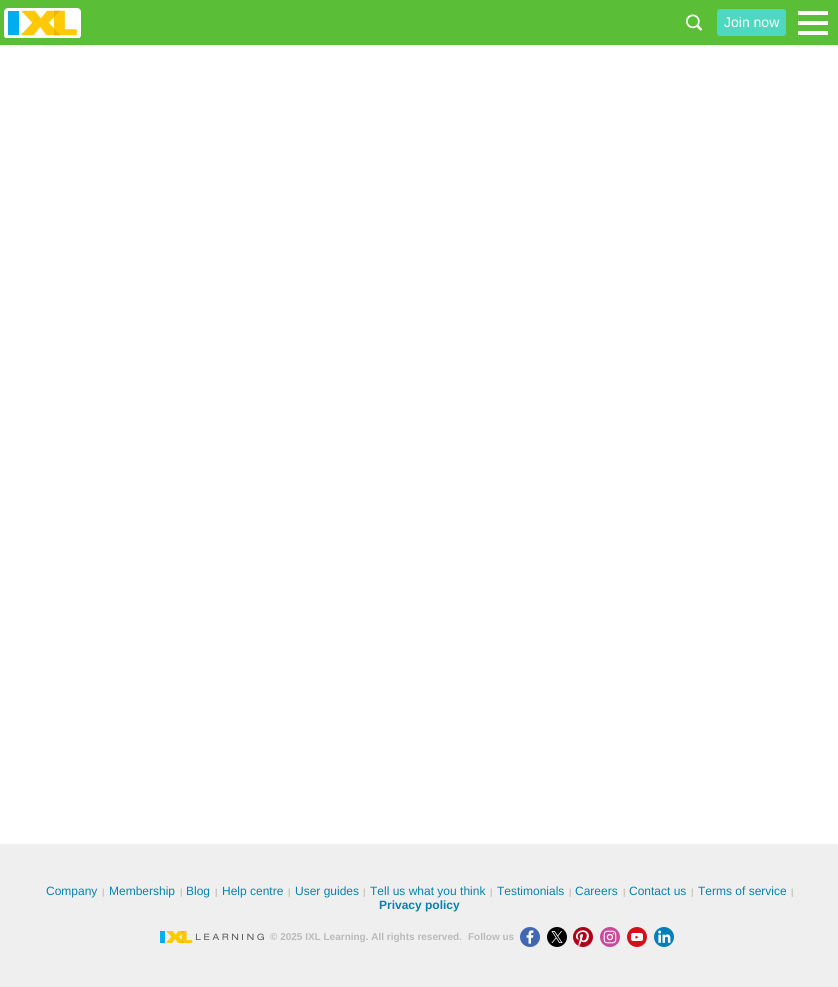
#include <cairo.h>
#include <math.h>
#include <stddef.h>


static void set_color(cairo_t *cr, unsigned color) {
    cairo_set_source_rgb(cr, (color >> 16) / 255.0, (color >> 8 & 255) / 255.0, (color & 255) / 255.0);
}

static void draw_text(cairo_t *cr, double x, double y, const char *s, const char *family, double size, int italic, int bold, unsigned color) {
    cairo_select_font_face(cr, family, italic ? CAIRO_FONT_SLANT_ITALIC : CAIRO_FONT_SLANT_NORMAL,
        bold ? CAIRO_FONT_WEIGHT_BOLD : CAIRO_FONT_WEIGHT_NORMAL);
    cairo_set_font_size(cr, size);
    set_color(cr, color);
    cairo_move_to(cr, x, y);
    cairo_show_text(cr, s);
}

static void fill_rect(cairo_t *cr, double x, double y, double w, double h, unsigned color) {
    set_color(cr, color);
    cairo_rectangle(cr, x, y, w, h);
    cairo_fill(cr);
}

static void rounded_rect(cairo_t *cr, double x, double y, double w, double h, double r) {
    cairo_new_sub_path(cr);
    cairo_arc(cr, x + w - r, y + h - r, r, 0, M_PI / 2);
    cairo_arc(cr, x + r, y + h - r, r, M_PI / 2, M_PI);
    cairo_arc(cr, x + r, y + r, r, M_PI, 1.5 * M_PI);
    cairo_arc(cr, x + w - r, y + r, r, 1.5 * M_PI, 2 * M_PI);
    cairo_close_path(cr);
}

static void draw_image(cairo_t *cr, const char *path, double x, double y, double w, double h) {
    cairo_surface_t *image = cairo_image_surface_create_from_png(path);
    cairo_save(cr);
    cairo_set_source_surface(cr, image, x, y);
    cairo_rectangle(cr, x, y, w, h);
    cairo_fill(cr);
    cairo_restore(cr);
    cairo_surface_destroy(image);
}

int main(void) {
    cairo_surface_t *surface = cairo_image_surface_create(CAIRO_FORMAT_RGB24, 838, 987);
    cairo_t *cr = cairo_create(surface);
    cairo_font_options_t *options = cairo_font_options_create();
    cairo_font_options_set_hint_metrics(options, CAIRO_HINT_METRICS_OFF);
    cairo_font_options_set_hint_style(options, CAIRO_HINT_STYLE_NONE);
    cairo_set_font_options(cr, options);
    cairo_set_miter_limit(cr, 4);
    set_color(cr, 0xFFFFFF);
    cairo_paint(cr);
    fill_rect(cr, 0, 0, 838, 45, 0x5ABE37);
    draw_image(cr, "assets/img1.png", 4, 8, 77, 30);
    draw_image(cr, "assets/img2.png", 686, 14, 16, 17);
    set_color(cr, 0x4FD7C0);
    rounded_rect(cr, 717, 9, 69, 27, 3);
    cairo_fill(cr);
    draw_text(cr, 724, 27, "Join now", "Liberation Sans", 14, 0, 0, 0xFFFFFF);
    fill_rect(cr, 798, 31, 30, 4, 0xFFFFFF);
    fill_rect(cr, 798, 21, 30, 4, 0xFFFFFF);
    fill_rect(cr, 798, 11, 30, 4, 0xFFFFFF);
    fill_rect(cr, 0, 844, 838, 143, 0xEFEFEF);
    draw_text(cr, 46, 895, "Company", "Liberation Sans", 12, 0, 0, 0x0782B0);
    draw_text(cr, 102, 895, "|", "Liberation Sans", 9, 0, 0, 0xACA899);
    draw_text(cr, 109, 895, "Membership", "Liberation Sans", 12, 0, 0, 0x0782B0);
    draw_text(cr, 180, 895, "|", "Liberation Sans", 9, 0, 0, 0xACA899);
    draw_text(cr, 186, 895, "Blog", "Liberation Sans", 12, 0, 0, 0x0782B0);
    draw_text(cr, 215, 895, "|", "Liberation Sans", 9, 0, 0, 0xACA899);
    draw_text(cr, 222, 895, "Help centre", "Liberation Sans", 12, 0, 0, 0x0782B0);
    draw_text(cr, 288, 895, "|", "Liberation Sans", 9, 0, 0, 0xACA899);
    draw_text(cr, 295, 895, "User guides", "Liberation Sans", 12, 0, 0, 0x0782B0);
    draw_text(cr, 363, 895, "|", "Liberation Sans", 9, 0, 0, 0xACA899);
    draw_text(cr, 370, 895, "Tell us what you think", "Liberation Sans", 12, 0, 0, 0x0782B0);
    draw_text(cr, 490, 895, "|", "Liberation Sans", 9, 0, 0, 0xACA899);
    draw_text(cr, 497, 895, "Testimonials", "Liberation Sans", 12, 0, 0, 0x0782B0);
    draw_text(cr, 569, 895, "|", "Liberation Sans", 9, 0, 0, 0xACA899);
    draw_text(cr, 575, 895, "Careers", "Liberation Sans", 12, 0, 0, 0x0782B0);
    draw_text(cr, 623, 895, "|", "Liberation Sans", 9, 0, 0, 0xACA899);
    draw_text(cr, 629, 895, "Contact us", "Liberation Sans", 12, 0, 0, 0x0782B0);
    draw_text(cr, 691, 895, "|", "Liberation Sans", 9, 0, 0, 0xACA899);
    draw_text(cr, 698, 895, "Terms of service", "Liberation Sans", 12, 0, 0, 0x0782B0);
    draw_text(cr, 791, 895, "|", "Liberation Sans", 9, 0, 0, 0xACA899);
    draw_text(cr, 379, 909, "Privacy policy", "Liberation Sans", 12, 0, 1, 0x0782B0);
    draw_image(cr, "assets/img3.png", 160, 931, 104, 12);
    draw_text(cr, 270, 940, "© 2025 IXL Learning. All rights reserved.", "Liberation Sans", 10, 0, 1, 0xBABABA);
    draw_text(cr, 468, 940, "Follow us", "Liberation Sans", 10, 0, 1, 0xBABABA);
    draw_image(cr, "assets/img4.png", 520, 927, 20, 20);
    draw_image(cr, "assets/img5.png", 547, 927, 20, 20);
    draw_image(cr, "assets/img6.png", 573, 927, 20, 20);
    draw_image(cr, "assets/img7.png", 600, 927, 20, 20);
    draw_image(cr, "assets/img8.png", 627, 927, 20, 20);
    draw_image(cr, "assets/img9.png", 654, 927, 20, 20);
    cairo_surface_write_to_png(surface, "output.png");
    cairo_font_options_destroy(options);
    cairo_destroy(cr);
    cairo_surface_destroy(surface);
    return 0;
}
